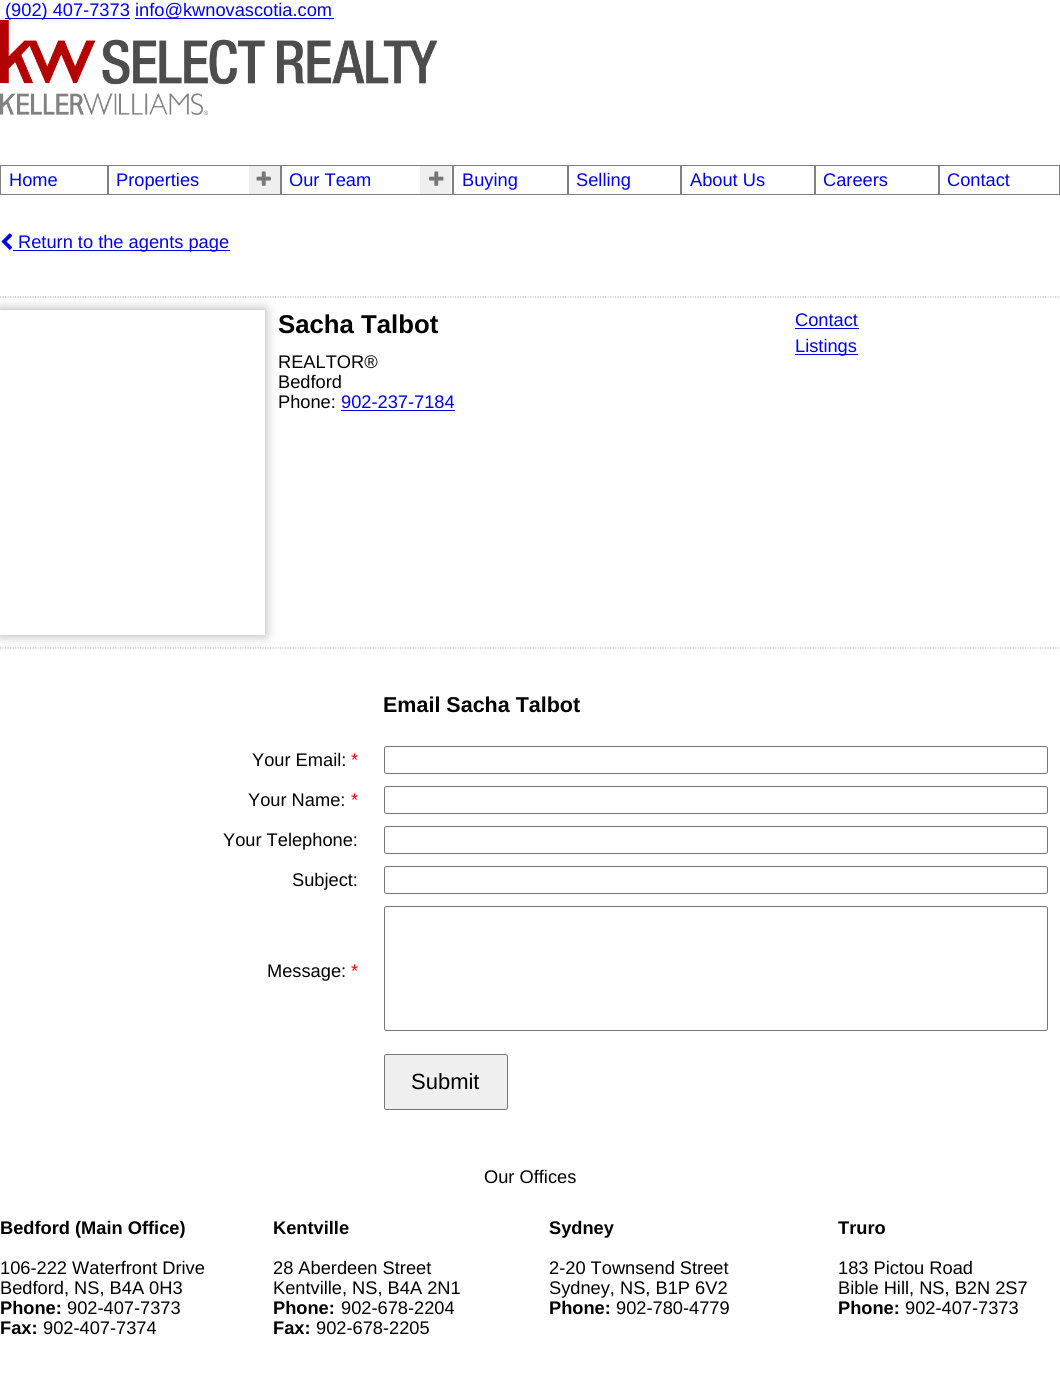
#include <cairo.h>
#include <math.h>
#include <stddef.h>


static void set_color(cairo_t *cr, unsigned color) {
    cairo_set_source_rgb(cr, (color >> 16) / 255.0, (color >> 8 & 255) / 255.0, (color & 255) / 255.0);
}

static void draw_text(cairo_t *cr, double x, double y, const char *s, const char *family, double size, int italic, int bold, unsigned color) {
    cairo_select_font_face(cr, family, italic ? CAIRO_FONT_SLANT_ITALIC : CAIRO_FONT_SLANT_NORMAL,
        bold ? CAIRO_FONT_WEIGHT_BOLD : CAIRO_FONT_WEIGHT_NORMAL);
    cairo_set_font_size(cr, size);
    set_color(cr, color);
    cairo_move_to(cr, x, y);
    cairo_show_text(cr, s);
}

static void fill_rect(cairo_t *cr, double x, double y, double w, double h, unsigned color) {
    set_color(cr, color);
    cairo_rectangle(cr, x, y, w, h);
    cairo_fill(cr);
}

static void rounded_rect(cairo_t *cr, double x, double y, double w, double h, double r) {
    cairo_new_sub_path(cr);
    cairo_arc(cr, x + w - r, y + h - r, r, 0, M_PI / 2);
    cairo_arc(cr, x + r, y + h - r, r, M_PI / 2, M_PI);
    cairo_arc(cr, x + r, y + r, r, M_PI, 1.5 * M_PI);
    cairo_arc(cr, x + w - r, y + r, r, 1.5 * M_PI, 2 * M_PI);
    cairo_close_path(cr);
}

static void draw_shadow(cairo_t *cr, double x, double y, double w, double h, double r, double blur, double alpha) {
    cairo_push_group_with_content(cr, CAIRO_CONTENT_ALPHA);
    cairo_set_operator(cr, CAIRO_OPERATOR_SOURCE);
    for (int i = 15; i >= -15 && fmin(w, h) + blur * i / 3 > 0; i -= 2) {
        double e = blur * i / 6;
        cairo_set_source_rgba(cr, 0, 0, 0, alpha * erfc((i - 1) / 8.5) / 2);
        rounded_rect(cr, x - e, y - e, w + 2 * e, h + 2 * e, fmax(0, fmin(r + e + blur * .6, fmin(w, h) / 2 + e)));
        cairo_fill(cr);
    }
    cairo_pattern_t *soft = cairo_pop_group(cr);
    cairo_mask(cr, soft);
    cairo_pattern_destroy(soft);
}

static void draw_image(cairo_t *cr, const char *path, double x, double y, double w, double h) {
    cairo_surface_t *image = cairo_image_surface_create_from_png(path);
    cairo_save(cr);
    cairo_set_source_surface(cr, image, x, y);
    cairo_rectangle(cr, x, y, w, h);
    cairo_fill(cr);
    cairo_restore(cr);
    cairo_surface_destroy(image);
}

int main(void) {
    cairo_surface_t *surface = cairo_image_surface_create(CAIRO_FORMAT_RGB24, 1060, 1377);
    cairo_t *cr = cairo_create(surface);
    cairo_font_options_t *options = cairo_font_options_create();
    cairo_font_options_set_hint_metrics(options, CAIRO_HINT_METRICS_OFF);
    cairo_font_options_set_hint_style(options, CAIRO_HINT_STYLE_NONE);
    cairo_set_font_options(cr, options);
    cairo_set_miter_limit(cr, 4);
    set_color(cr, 0xFFFFFF);
    cairo_paint(cr);
    fill_rect(cr, 5, 18, 125, 1, 0x0000EE);
    draw_text(cr, 5, 16, "(902) 407-7373", "Liberation Sans", 18.25, 0, 0, 0x0000EE);
    fill_rect(cr, 135, 18, 199, 1, 0x0000EE);
    draw_text(cr, 135, 16, "info@kwnovascotia.com", "Liberation Sans", 18.25, 0, 0, 0x0000EE);
    draw_image(cr, "assets/img1.png", 0, 20, 438, 95);
    cairo_rectangle(cr, 0.5, 165.5, 107, 29);
    set_color(cr, 0x808080);
    cairo_set_line_width(cr, 1);
    cairo_stroke(cr);
    draw_text(cr, 9, 186, "Home", "Liberation Sans", 18.25, 0, 0, 0x0000EE);
    cairo_rectangle(cr, 108.5, 165.5, 172, 29);
    set_color(cr, 0x808080);
    cairo_stroke(cr);
    draw_text(cr, 116, 186, "Properties", "Liberation Sans", 18.25, 0, 0, 0x0000EE);
    fill_rect(cr, 249, 166, 31, 28, 0xEFEFEF);
    draw_image(cr, "assets/img2.png", 256, 171, 15, 15);
    cairo_rectangle(cr, 281.5, 165.5, 171, 29);
    set_color(cr, 0x808080);
    cairo_stroke(cr);
    draw_text(cr, 289, 186, "Our Team", "Liberation Sans", 18.25, 0, 0, 0x0000EE);
    fill_rect(cr, 420, 166, 31, 28, 0xEFEFEF);
    draw_image(cr, "assets/img3.png", 429, 171, 15, 15);
    cairo_rectangle(cr, 453.5, 165.5, 114, 29);
    set_color(cr, 0x808080);
    cairo_stroke(cr);
    draw_text(cr, 462, 186, "Buying", "Liberation Sans", 18.25, 0, 0, 0x0000EE);
    cairo_rectangle(cr, 568.5, 165.5, 112, 29);
    set_color(cr, 0x808080);
    cairo_stroke(cr);
    draw_text(cr, 576, 186, "Selling", "Liberation Sans", 18.25, 0, 0, 0x0000EE);
    cairo_rectangle(cr, 681.5, 165.5, 133, 29);
    set_color(cr, 0x808080);
    cairo_stroke(cr);
    draw_text(cr, 690, 186, "About Us", "Liberation Sans", 18.25, 0, 0, 0x0000EE);
    cairo_rectangle(cr, 815.5, 165.5, 123, 29);
    set_color(cr, 0x808080);
    cairo_stroke(cr);
    draw_text(cr, 823, 186, "Careers", "Liberation Sans", 18.25, 0, 0, 0x0000EE);
    cairo_rectangle(cr, 939.5, 165.5, 120, 29);
    set_color(cr, 0x808080);
    cairo_stroke(cr);
    draw_text(cr, 947, 186, "Contact", "Liberation Sans", 18.25, 0, 0, 0x0000EE);
    draw_image(cr, "assets/img4.png", 1, 233, 12, 17);
    fill_rect(cr, 13, 250, 217, 1, 0x0000EE);
    draw_text(cr, 18, 248, "Return to the agents page", "Liberation Sans", 18.25, 0, 0, 0x0000EE);
    cairo_new_path(cr);
    cairo_move_to(cr, 0, 297);
    cairo_line_to(cr, 1060, 297);
    set_color(cr, 0xBFBFBF);
    cairo_set_line_width(cr, 1.2);
    cairo_set_dash(cr, (double[]){1.25, 1.25}, 2, 0);
    cairo_stroke(cr);
    cairo_new_path(cr);
    cairo_move_to(cr, 0, 648);
    cairo_line_to(cr, 1060, 648);
    cairo_stroke(cr);
    cairo_save(cr);
    cairo_set_fill_rule(cr, CAIRO_FILL_RULE_EVEN_ODD);
    cairo_new_path(cr);
    cairo_move_to(cr, 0, 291);
    cairo_line_to(cr, 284, 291);
    cairo_line_to(cr, 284, 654);
    cairo_line_to(cr, 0, 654);
    cairo_close_path(cr);
    cairo_move_to(cr, 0, 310);
    cairo_line_to(cr, 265, 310);
    cairo_line_to(cr, 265, 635);
    cairo_line_to(cr, 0, 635);
    cairo_close_path(cr);
    cairo_clip(cr);
    set_color(cr, 0xAAAAAA);
    draw_shadow(cr, 0, 310, 265, 325, 0, 6, 1);
    cairo_restore(cr);
    draw_text(cr, 278, 333, "Sacha Talbot", "Liberation Sans", 25.75, 0, 1, 0x000000);
    draw_text(cr, 278, 368, "REALTOR®", "Liberation Sans", 18.25, 0, 0, 0x000000);
    draw_text(cr, 278, 388, "Bedford", "Liberation Sans", 18.25, 0, 0, 0x000000);
    draw_text(cr, 278, 408, "Phone:", "Liberation Sans", 18.25, 0, 0, 0x000000);
    draw_text(cr, 341, 408, "902-237-7184", "Liberation Sans", 18.25, 0, 0, 0x0000EE);
    fill_rect(cr, 341, 410, 114, 1, 0x0000EE);
    draw_text(cr, 795, 326, "Contact", "Liberation Sans", 18.25, 0, 0, 0x0000EE);
    fill_rect(cr, 795, 328, 64, 1, 0x0000EE);
    fill_rect(cr, 795, 354, 63, 1, 0x0000EE);
    draw_text(cr, 795, 352, "Listings", "Liberation Sans", 18.25, 0, 0, 0x0000EE);
    draw_text(cr, 383, 712, "Email Sacha Talbot", "Liberation Sans", 21.5, 0, 1, 0x000000);
    draw_text(cr, 252, 766, "Your Email:", "Liberation Sans", 18.25, 0, 0, 0x000000);
    draw_text(cr, 351, 766, "*", "Liberation Sans", 18.25, 0, 0, 0xFF0000);
    rounded_rect(cr, 384.5, 746.5, 663, 27, 2);
    set_color(cr, 0x767676);
    cairo_set_line_width(cr, 1);
    cairo_set_dash(cr, NULL, 0, 0);
    cairo_stroke(cr);
    draw_text(cr, 248, 806, "Your Name:", "Liberation Sans", 18.25, 0, 0, 0x000000);
    draw_text(cr, 351, 806, "*", "Liberation Sans", 18.25, 0, 0, 0xFF0000);
    rounded_rect(cr, 384.5, 786.5, 663, 27, 2);
    set_color(cr, 0x767676);
    cairo_stroke(cr);
    draw_text(cr, 223, 846, "Your Telephone:", "Liberation Sans", 18.25, 0, 0, 0x000000);
    rounded_rect(cr, 384.5, 826.5, 663, 27, 2);
    set_color(cr, 0x767676);
    cairo_stroke(cr);
    draw_text(cr, 292, 886, "Subject:", "Liberation Sans", 18.25, 0, 0, 0x000000);
    rounded_rect(cr, 384.5, 866.5, 663, 27, 2);
    set_color(cr, 0x767676);
    cairo_stroke(cr);
    draw_text(cr, 267, 977, "Message:", "Liberation Sans", 18.25, 0, 0, 0x000000);
    draw_text(cr, 351, 977, "*", "Liberation Sans", 18.25, 0, 0, 0xFF0000);
    rounded_rect(cr, 384.5, 906.5, 663, 124, 2);
    set_color(cr, 0x767676);
    cairo_stroke(cr);
    set_color(cr, 0xEFEFEF);
    rounded_rect(cr, 384.5, 1054.5, 123, 55, 2);
    cairo_fill_preserve(cr);
    set_color(cr, 0x767676);
    cairo_stroke(cr);
    draw_text(cr, 411, 1089, "Submit", "Liberation Sans", 22, 0, 0, 0x000000);
    draw_text(cr, 484, 1183, "Our Offices", "Liberation Sans", 18.25, 0, 0, 0x000000);
    draw_text(cr, 0, 1234, "Bedford (Main Office)", "Liberation Sans", 18.25, 0, 1, 0x000000);
    draw_text(cr, 0, 1274, "106-222 Waterfront Drive", "Liberation Sans", 18.25, 0, 0, 0x000000);
    draw_text(cr, 0, 1294, "Bedford, NS, B4A 0H3", "Liberation Sans", 18.25, 0, 0, 0x000000);
    draw_text(cr, 0, 1314, "Phone:", "Liberation Sans", 18.25, 0, 1, 0x000000);
    draw_text(cr, 67, 1314, "902-407-7373", "Liberation Sans", 18.25, 0, 0, 0x000000);
    draw_text(cr, 0, 1334, "Fax:", "Liberation Sans", 18.25, 0, 1, 0x000000);
    draw_text(cr, 43, 1334, "902-407-7374", "Liberation Sans", 18.25, 0, 0, 0x000000);
    draw_text(cr, 273, 1234, "Kentville", "Liberation Sans", 18.25, 0, 1, 0x000000);
    draw_text(cr, 273, 1274, "28 Aberdeen Street", "Liberation Sans", 18.25, 0, 0, 0x000000);
    draw_text(cr, 273, 1294, "Kentville, NS, B4A 2N1", "Liberation Sans", 18.25, 0, 0, 0x000000);
    draw_text(cr, 273, 1314, "Phone:", "Liberation Sans", 18.25, 0, 1, 0x000000);
    draw_text(cr, 341, 1314, "902-678-2204", "Liberation Sans", 18.25, 0, 0, 0x000000);
    draw_text(cr, 273, 1334, "Fax:", "Liberation Sans", 18.25, 0, 1, 0x000000);
    draw_text(cr, 316, 1334, "902-678-2205", "Liberation Sans", 18.25, 0, 0, 0x000000);
    draw_text(cr, 549, 1234, "Sydney", "Liberation Sans", 18.25, 0, 1, 0x000000);
    draw_text(cr, 549, 1274, "2-20 Townsend Street", "Liberation Sans", 18.25, 0, 0, 0x000000);
    draw_text(cr, 549, 1294, "Sydney, NS, B1P 6V2", "Liberation Sans", 18.25, 0, 0, 0x000000);
    draw_text(cr, 549, 1314, "Phone:", "Liberation Sans", 18.25, 0, 1, 0x000000);
    draw_text(cr, 616, 1314, "902-780-4779", "Liberation Sans", 18.25, 0, 0, 0x000000);
    draw_text(cr, 838, 1234, "Truro", "Liberation Sans", 18.25, 0, 1, 0x000000);
    draw_text(cr, 838, 1274, "183 Pictou Road", "Liberation Sans", 18.25, 0, 0, 0x000000);
    draw_text(cr, 838, 1294, "Bible Hill, NS, B2N 2S7", "Liberation Sans", 18.25, 0, 0, 0x000000);
    draw_text(cr, 838, 1314, "Phone:", "Liberation Sans", 18.25, 0, 1, 0x000000);
    draw_text(cr, 905, 1314, "902-407-7373", "Liberation Sans", 18.25, 0, 0, 0x000000);
    cairo_surface_write_to_png(surface, "output.png");
    cairo_font_options_destroy(options);
    cairo_destroy(cr);
    cairo_surface_destroy(surface);
    return 0;
}
